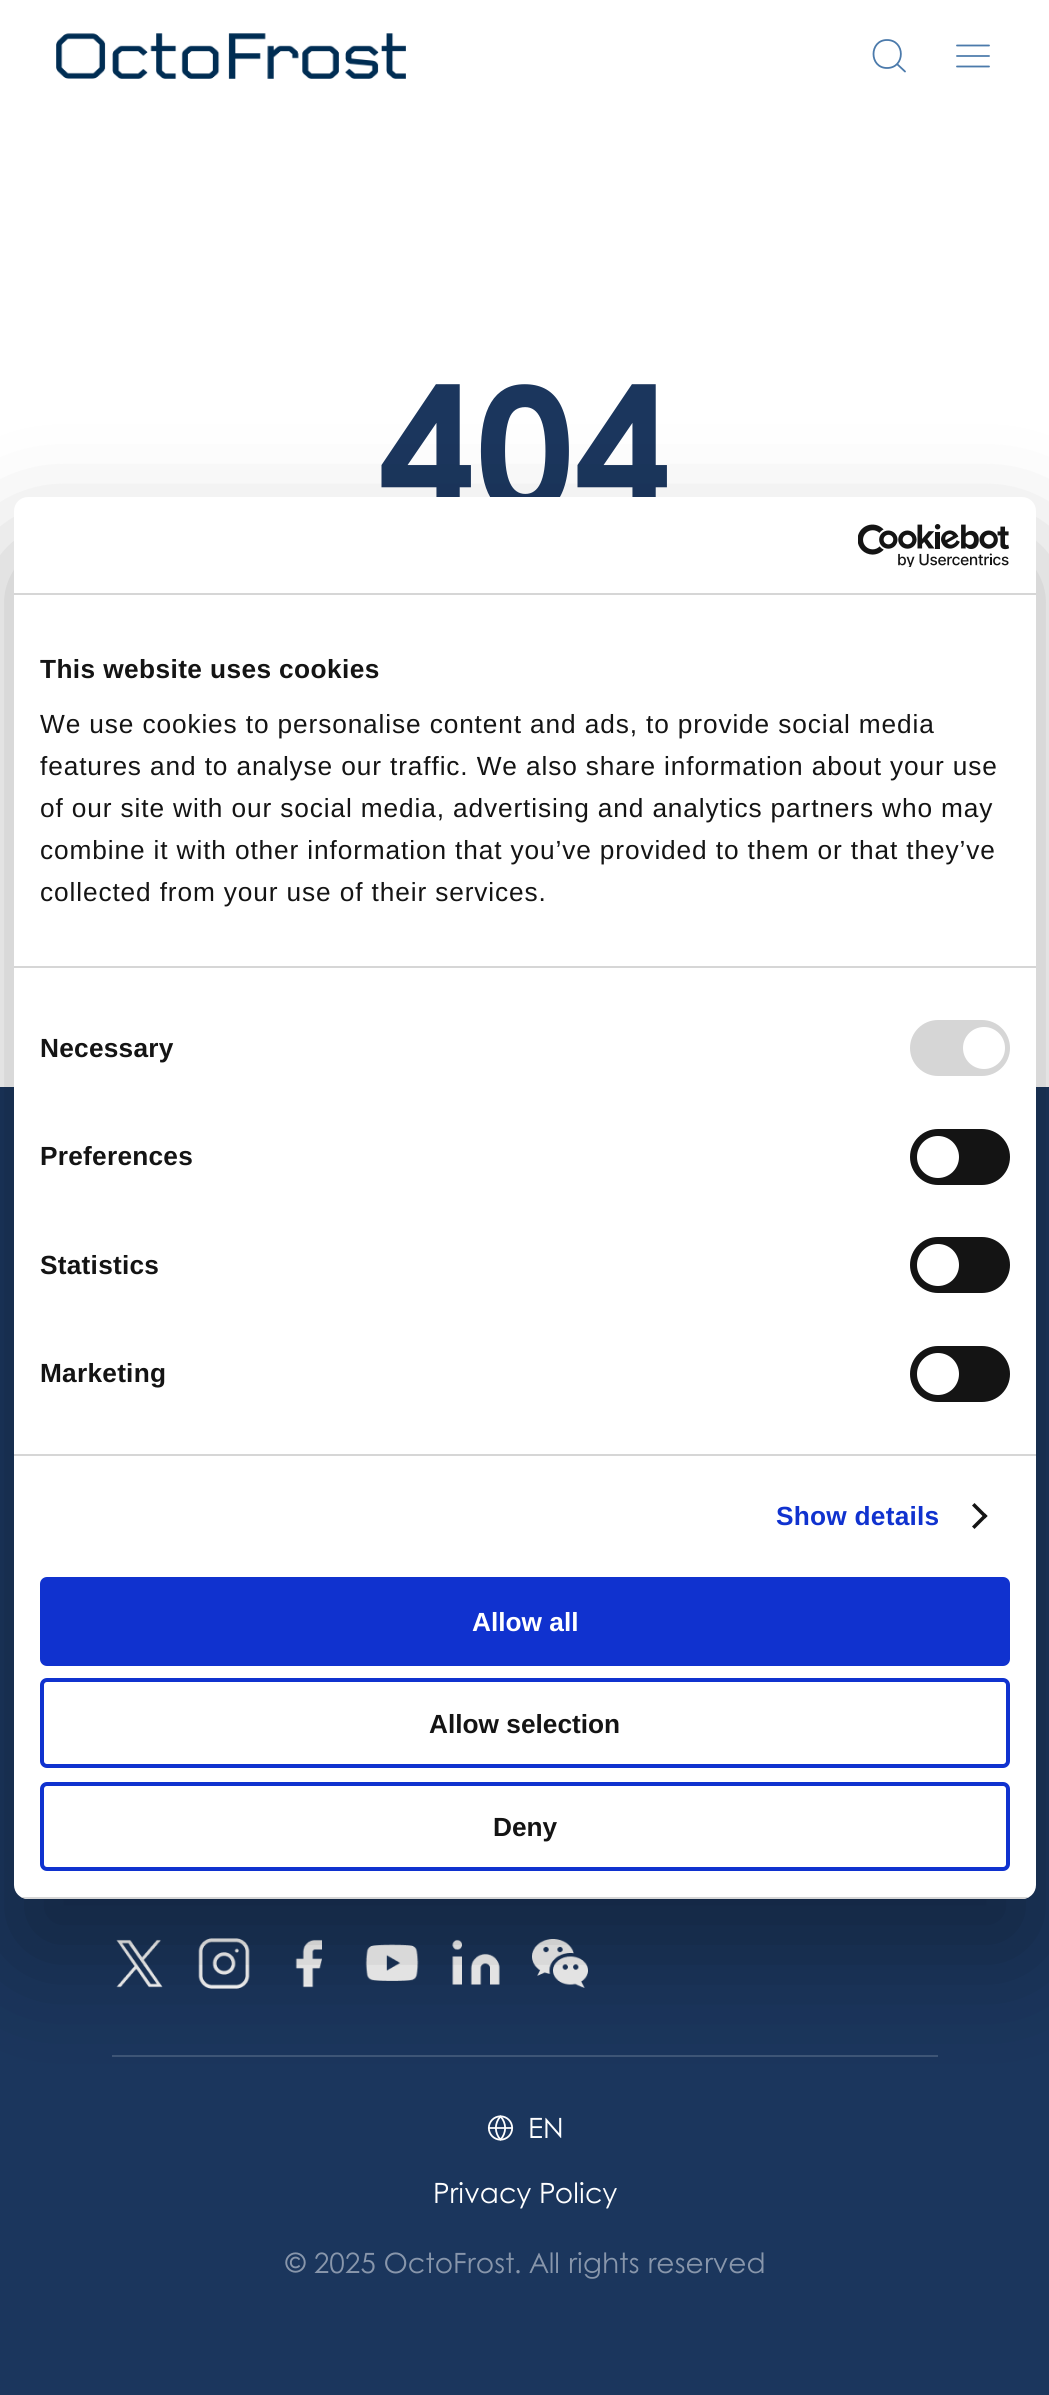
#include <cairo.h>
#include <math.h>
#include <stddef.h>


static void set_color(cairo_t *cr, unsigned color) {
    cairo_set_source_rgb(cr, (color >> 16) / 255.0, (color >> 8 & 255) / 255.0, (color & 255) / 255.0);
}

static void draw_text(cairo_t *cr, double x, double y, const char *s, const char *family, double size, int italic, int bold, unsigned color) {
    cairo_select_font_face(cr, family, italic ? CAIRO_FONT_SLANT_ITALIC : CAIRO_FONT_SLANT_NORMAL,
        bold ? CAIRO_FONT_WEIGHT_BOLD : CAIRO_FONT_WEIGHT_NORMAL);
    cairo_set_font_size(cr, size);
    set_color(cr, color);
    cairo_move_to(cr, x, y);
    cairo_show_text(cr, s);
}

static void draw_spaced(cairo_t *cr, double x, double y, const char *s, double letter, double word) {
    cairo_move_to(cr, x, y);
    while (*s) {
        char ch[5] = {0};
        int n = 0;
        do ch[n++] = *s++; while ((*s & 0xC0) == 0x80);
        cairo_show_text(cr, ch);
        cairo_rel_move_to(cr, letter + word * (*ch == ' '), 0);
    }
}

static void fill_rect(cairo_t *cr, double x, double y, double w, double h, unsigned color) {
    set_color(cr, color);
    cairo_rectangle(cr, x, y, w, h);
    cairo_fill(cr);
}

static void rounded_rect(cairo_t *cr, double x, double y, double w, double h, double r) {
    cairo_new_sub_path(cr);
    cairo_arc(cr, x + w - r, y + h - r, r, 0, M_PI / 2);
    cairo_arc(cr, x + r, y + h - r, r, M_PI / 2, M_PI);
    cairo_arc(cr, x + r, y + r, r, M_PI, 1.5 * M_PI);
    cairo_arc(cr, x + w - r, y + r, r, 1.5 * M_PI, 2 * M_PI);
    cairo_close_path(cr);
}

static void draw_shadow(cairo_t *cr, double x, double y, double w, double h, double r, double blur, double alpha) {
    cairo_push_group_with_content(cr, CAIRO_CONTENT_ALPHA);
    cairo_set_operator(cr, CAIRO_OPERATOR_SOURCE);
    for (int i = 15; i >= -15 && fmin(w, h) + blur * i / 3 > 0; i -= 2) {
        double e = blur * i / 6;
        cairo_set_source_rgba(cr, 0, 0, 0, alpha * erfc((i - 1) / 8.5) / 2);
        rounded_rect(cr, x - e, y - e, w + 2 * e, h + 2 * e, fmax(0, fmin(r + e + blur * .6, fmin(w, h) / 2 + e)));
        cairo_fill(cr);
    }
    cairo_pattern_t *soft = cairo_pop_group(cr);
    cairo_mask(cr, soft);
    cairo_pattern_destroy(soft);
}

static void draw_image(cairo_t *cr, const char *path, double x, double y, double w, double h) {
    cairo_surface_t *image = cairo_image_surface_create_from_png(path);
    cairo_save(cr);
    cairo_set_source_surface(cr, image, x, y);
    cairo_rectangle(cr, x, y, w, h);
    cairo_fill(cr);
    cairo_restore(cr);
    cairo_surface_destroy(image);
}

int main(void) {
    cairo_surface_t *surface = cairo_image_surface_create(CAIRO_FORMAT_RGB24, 1049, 2395);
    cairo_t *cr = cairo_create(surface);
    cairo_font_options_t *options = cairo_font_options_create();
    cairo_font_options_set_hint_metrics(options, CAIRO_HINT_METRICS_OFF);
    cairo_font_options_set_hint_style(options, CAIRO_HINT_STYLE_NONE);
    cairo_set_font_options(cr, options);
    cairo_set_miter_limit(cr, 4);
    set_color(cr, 0xFFFFFF);
    cairo_paint(cr);
    draw_image(cr, "assets/img1.png", 56, 33, 350, 46);
    cairo_new_path(cr);
    cairo_move_to(cr, 887, 68);
    cairo_curve_to(cr, 905.5, 68, 905.5, 40, 887, 40);
    cairo_curve_to(cr, 869, 40, 869, 68, 887, 68);
    cairo_close_path(cr);
    cairo_move_to(cr, 905, 71.5);
    cairo_line_to(cr, 897, 64);
    set_color(cr, 0x4B7AAB);
    cairo_set_line_width(cr, 1.8);
    cairo_set_line_cap(cr, CAIRO_LINE_CAP_ROUND);
    cairo_set_line_join(cr, CAIRO_LINE_JOIN_ROUND);
    cairo_stroke(cr);
    cairo_new_path(cr);
    cairo_move_to(cr, 957, 56);
    cairo_line_to(cr, 989, 56);
    cairo_move_to(cr, 957, 45.5);
    cairo_line_to(cr, 989, 45.5);
    cairo_move_to(cr, 957, 66.5);
    cairo_line_to(cr, 989, 66.5);
    cairo_stroke(cr);
    draw_text(cr, 378, 513, "404", "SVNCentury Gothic", 175, 0, 1, 0x1B365D);
    fill_rect(cr, 0, 1087, 1049, 1308, 0x1B365D);
    draw_image(cr, "assets/img3.png", 116, 1939, 47, 49);
    draw_image(cr, "assets/img4.png", 198, 1938, 52, 51);
    draw_image(cr, "assets/img5.png", 295, 1939, 27, 49);
    draw_image(cr, "assets/img6.png", 365, 1944, 54, 37);
    draw_image(cr, "assets/img7.png", 452, 1939, 48, 46);
    draw_image(cr, "assets/img8.png", 532, 1939, 56, 49);
    fill_rect(cr, 112, 2055, 826, 2, 0x3F5677);
    draw_image(cr, "assets/img9.png", 487, 2115, 27, 26);
    set_color(cr, 0x000000);
    draw_shadow(cr, 14, 553, 1022, 1402, 14, 59.5, 0.3);
    set_color(cr, 0xFFFFFF);
    rounded_rect(cr, 14, 497, 1022, 1402, 14);
    cairo_fill(cr);
    fill_rect(cr, 14, 593, 1022, 2, 0xD6D6D6);
    draw_image(cr, "assets/img2.png", 858, 524, 151, 43);
    fill_rect(cr, 14, 966, 1022, 2, 0xD6D6D6);
    cairo_select_font_face(cr, "Liberation Sans", CAIRO_FONT_SLANT_NORMAL, CAIRO_FONT_WEIGHT_BOLD);
    cairo_set_font_size(cr, 26.25);
    set_color(cr, 0x141414);
    draw_spaced(cr, 40, 678, "This website uses cookies", 0.4, 0);
    cairo_select_font_face(cr, "Liberation Sans", CAIRO_FONT_SLANT_NORMAL, CAIRO_FONT_WEIGHT_NORMAL);
    draw_spaced(cr, 40, 733, "We use cookies to personalise content and ads, to provide social media", 0.88, 0);
    draw_spaced(cr, 40, 775, "features and to analyse our traffic. We also share information about your use", 0.88, 0);
    draw_spaced(cr, 40, 817, "of our site with our social media, advertising and analytics partners who may", 0.88, 0);
    draw_spaced(cr, 40, 859, "combine it with other information that you’ve provided to them or that they’ve", 0.88, 0);
    draw_spaced(cr, 40, 901, "collected from your use of their services.", 0.88, 0);
    fill_rect(cr, 14, 1454, 1022, 2, 0xD6D6D6);
    cairo_select_font_face(cr, "Liberation Sans", CAIRO_FONT_SLANT_NORMAL, CAIRO_FONT_WEIGHT_BOLD);
    set_color(cr, 0x141414);
    draw_spaced(cr, 40, 1057, "Necessary", 0.25, 0);
    set_color(cr, 0xD6D6D6);
    rounded_rect(cr, 910, 1020, 100, 56, 28);
    cairo_fill(cr);
    set_color(cr, 0xFFFFFF);
    cairo_arc(cr, 984, 1048, 21, 0, 2 * M_PI);
    cairo_fill(cr);
    set_color(cr, 0x141414);
    draw_spaced(cr, 40, 1165, "Preferences", 0.25, 0);
    rounded_rect(cr, 910, 1129, 100, 56, 28);
    cairo_fill(cr);
    set_color(cr, 0xFFFFFF);
    cairo_arc(cr, 938, 1157, 21, 0, 2 * M_PI);
    cairo_fill(cr);
    set_color(cr, 0x141414);
    draw_spaced(cr, 40, 1274, "Statistics", 0.25, 0);
    rounded_rect(cr, 910, 1237, 100, 56, 28);
    cairo_fill(cr);
    set_color(cr, 0xFFFFFF);
    cairo_arc(cr, 938, 1265, 21, 0, 2 * M_PI);
    cairo_fill(cr);
    set_color(cr, 0x141414);
    draw_spaced(cr, 40, 1382, "Marketing", 0.25, 0);
    rounded_rect(cr, 910, 1346, 100, 56, 28);
    cairo_fill(cr);
    set_color(cr, 0xFFFFFF);
    cairo_arc(cr, 938, 1374, 21, 0, 2 * M_PI);
    cairo_fill(cr);
    set_color(cr, 0x1032CF);
    draw_spaced(cr, 776, 1525, "Show details", 0.25, 0);
    set_color(cr, 0x141414);
    cairo_new_path(cr);
    cairo_move_to(cr, 974.5, 1503);
    cairo_line_to(cr, 987.5, 1516);
    cairo_line_to(cr, 985, 1518.5);
    cairo_line_to(cr, 972, 1505.5);
    cairo_close_path(cr);
    cairo_fill(cr);
    cairo_new_path(cr);
    cairo_move_to(cr, 985, 1513.5);
    cairo_line_to(cr, 987.5, 1516);
    cairo_line_to(cr, 974.5, 1529);
    cairo_line_to(cr, 972, 1526.5);
    cairo_close_path(cr);
    cairo_fill(cr);
    cairo_save(cr);
    rounded_rect(cr, 14, 497, 1022, 1402, 14);
    cairo_clip(cr);
    fill_rect(cr, 14, 1897, 1022, 2, 0xD6D6D6);
    cairo_restore(cr);
    set_color(cr, 0x1032CF);
    rounded_rect(cr, 42, 1579, 966, 85, 5);
    cairo_fill_preserve(cr);
    cairo_set_line_width(cr, 4);
    cairo_set_line_cap(cr, CAIRO_LINE_CAP_BUTT);
    cairo_set_line_join(cr, CAIRO_LINE_JOIN_MITER);
    cairo_stroke(cr);
    draw_text(cr, 472, 1631, "Allow all", "Liberation Sans", 26.25, 0, 1, 0xFFFFFF);
    rounded_rect(cr, 42, 1680, 966, 86, 5);
    set_color(cr, 0x1032CF);
    cairo_stroke(cr);
    draw_text(cr, 429, 1733, "Allow selection", "Liberation Sans", 26.25, 0, 1, 0x141414);
    rounded_rect(cr, 42, 1784, 966, 85, 5);
    set_color(cr, 0x1032CF);
    cairo_stroke(cr);
    draw_text(cr, 493, 1836, "Deny", "Liberation Sans", 26.25, 0, 1, 0x141414);
    draw_text(cr, 528, 2138, "EN", "SVNCentury Gothic", 28, 0, 0, 0xFFFFFF);
    draw_text(cr, 433, 2203, "Privacy Policy", "SVNCentury Gothic", 28, 0, 0, 0xFFFFFF);
    draw_text(cr, 285, 2273, "© 2025 OctoFrost. All rights reserved", "SVNCentury Gothic", 28, 0, 0, 0x8896AB);
    cairo_surface_write_to_png(surface, "output.png");
    cairo_font_options_destroy(options);
    cairo_destroy(cr);
    cairo_surface_destroy(surface);
    return 0;
}
